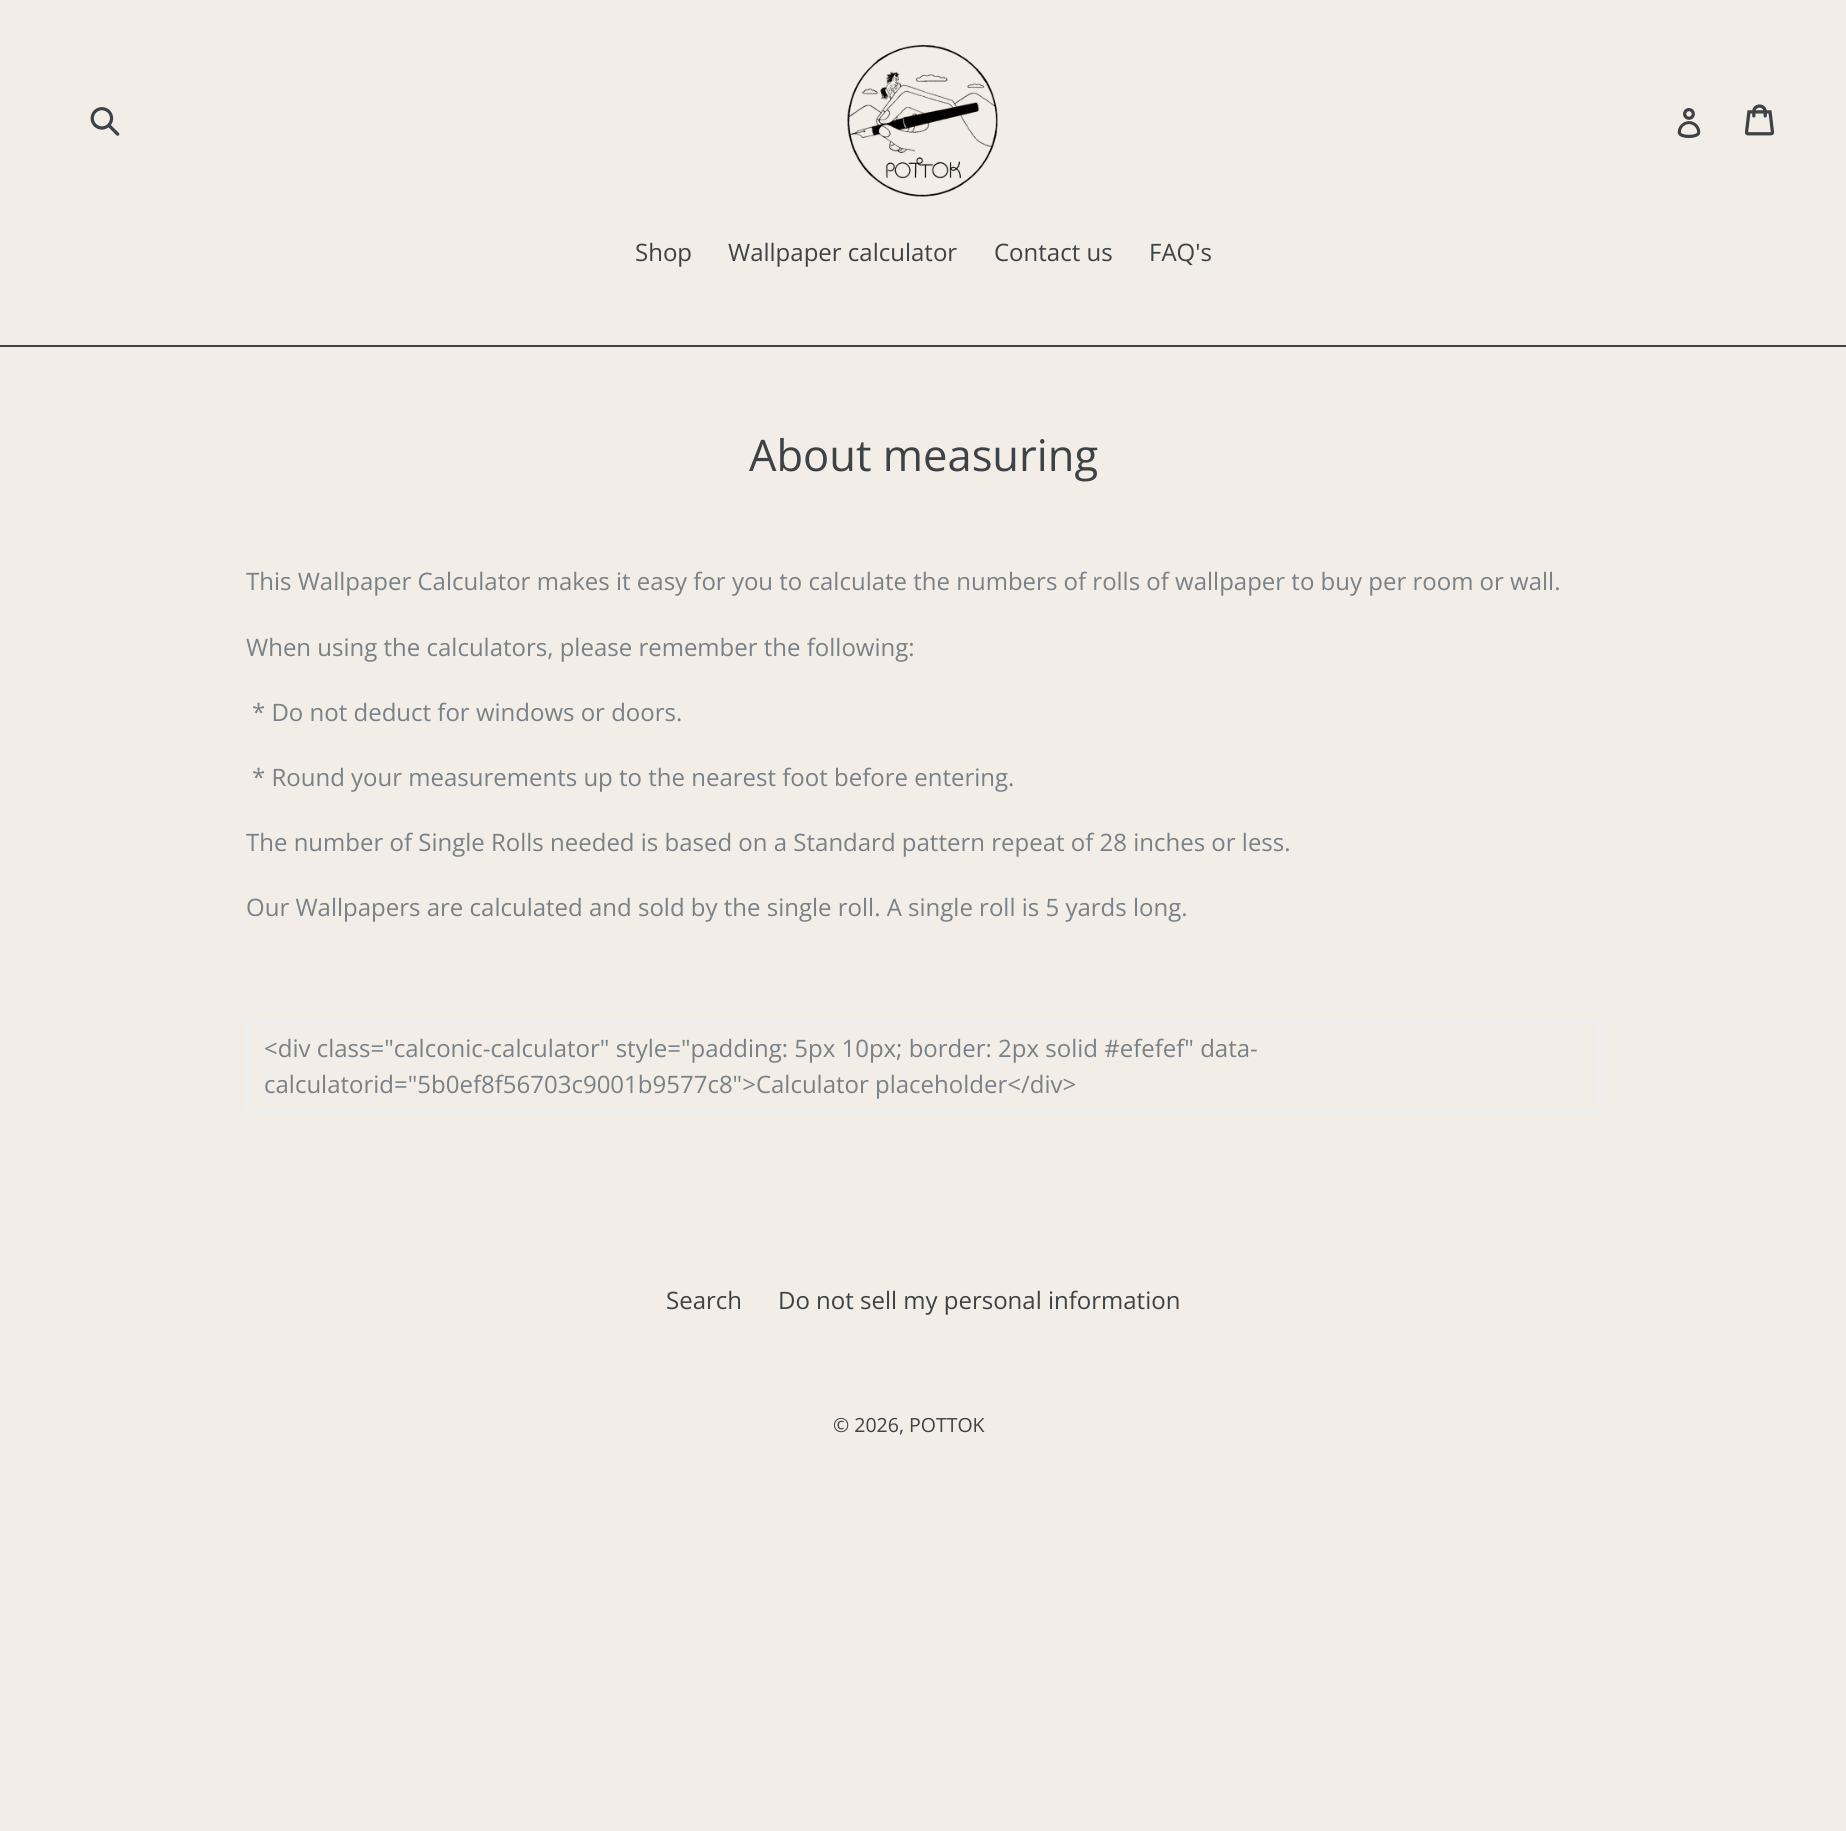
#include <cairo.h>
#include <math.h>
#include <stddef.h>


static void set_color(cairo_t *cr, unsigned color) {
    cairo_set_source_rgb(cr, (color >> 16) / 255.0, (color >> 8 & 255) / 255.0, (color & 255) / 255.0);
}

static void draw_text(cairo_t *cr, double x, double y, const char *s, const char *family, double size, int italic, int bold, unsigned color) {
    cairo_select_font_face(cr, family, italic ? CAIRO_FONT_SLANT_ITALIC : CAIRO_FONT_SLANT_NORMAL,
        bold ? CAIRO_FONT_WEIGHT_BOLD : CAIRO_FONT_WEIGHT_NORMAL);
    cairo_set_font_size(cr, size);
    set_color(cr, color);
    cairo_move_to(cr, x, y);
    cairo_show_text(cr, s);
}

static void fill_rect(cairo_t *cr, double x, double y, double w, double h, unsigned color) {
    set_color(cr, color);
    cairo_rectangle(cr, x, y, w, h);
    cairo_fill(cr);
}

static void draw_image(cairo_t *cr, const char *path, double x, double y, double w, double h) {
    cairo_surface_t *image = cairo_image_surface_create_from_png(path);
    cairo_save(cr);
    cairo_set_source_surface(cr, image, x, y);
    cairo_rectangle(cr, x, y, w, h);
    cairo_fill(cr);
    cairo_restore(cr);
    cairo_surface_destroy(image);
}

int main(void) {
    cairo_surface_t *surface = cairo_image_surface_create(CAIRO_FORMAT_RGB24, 1846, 1831);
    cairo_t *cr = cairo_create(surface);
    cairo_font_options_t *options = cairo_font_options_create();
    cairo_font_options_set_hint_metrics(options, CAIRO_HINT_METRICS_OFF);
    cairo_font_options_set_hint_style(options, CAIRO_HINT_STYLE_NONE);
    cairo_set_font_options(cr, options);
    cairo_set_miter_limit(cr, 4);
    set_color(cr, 0xF2EDE6);
    cairo_paint(cr);
    draw_image(cr, "assets/img1.png", 90, 107, 30, 29);
    draw_image(cr, "assets/img2.png", 847, 45, 151, 152);
    draw_image(cr, "assets/img3.png", 1677, 108, 24, 30);
    draw_image(cr, "assets/img4.png", 1745, 104, 30, 32);
    fill_rect(cr, 0, 345, 1846, 2, 0x3D4246);
    draw_text(cr, 635, 261, "Shop", "Open Sans", 24, 0, 0, 0x3D4246);
    draw_text(cr, 728, 261, "Wallpaper calculator", "Open Sans", 24, 0, 0, 0x3D4246);
    draw_text(cr, 994, 261, "Contact us", "Open Sans", 24, 0, 0, 0x3D4246);
    draw_text(cr, 1149, 261, "FAQ's", "Open Sans", 24, 0, 0, 0x3D4246);
    draw_text(cr, 749, 471, "About measuring", "Open Sans", 43.5, 0, 0, 0x3D4246);
    draw_text(cr, 246, 590, "This Wallpaper Calculator makes it easy for you to calculate the numbers of rolls of wallpaper to buy per room or wall.", "Open Sans", 24, 0, 0, 0x788188);
    draw_text(cr, 246, 656, "When using the calculators, please remember the following:", "Open Sans", 24, 0, 0, 0x788188);
    draw_text(cr, 252, 721, "* Do not deduct for windows or doors.", "Open Sans", 24, 0, 0, 0x788188);
    draw_text(cr, 252, 786, "* Round your measurements up to the nearest foot before entering.", "Open Sans", 24, 0, 0, 0x788188);
    draw_text(cr, 246, 851, "The number of Single Rolls needed is based on a Standard pattern repeat of 28 inches or less.", "Open Sans", 24, 0, 0, 0x788188);
    draw_text(cr, 246, 916, "Our Wallpapers are calculated and sold by the single roll. A single roll is 5 yards long.", "Open Sans", 24, 0, 0, 0x788188);
    cairo_rectangle(cr, 247.5, 1021.5, 1352, 90);
    set_color(cr, 0xEFEFEF);
    cairo_set_line_width(cr, 3);
    cairo_stroke(cr);
    draw_text(cr, 264, 1057, "<div class=\"calconic-calculator\" style=\"padding: 5px 10px; border: 2px solid #efefef\" data-", "Open Sans", 24, 0, 0, 0x788188);
    draw_text(cr, 264, 1093, "calculatorid=\"5b0ef8f56703c9001b9577c8\">Calculator placeholder</div>", "Open Sans", 24, 0, 0, 0x788188);
    draw_text(cr, 666, 1309, "Search", "Open Sans", 24, 0, 0, 0x3D4246);
    draw_text(cr, 778, 1309, "Do not sell my personal information", "Open Sans", 24, 0, 0, 0x3D4246);
    draw_text(cr, 833, 1432, "© 2026, POTTOK", "Open Sans", 19.5, 0, 0, 0x3D4246);
    cairo_surface_write_to_png(surface, "output.png");
    cairo_font_options_destroy(options);
    cairo_destroy(cr);
    cairo_surface_destroy(surface);
    return 0;
}
